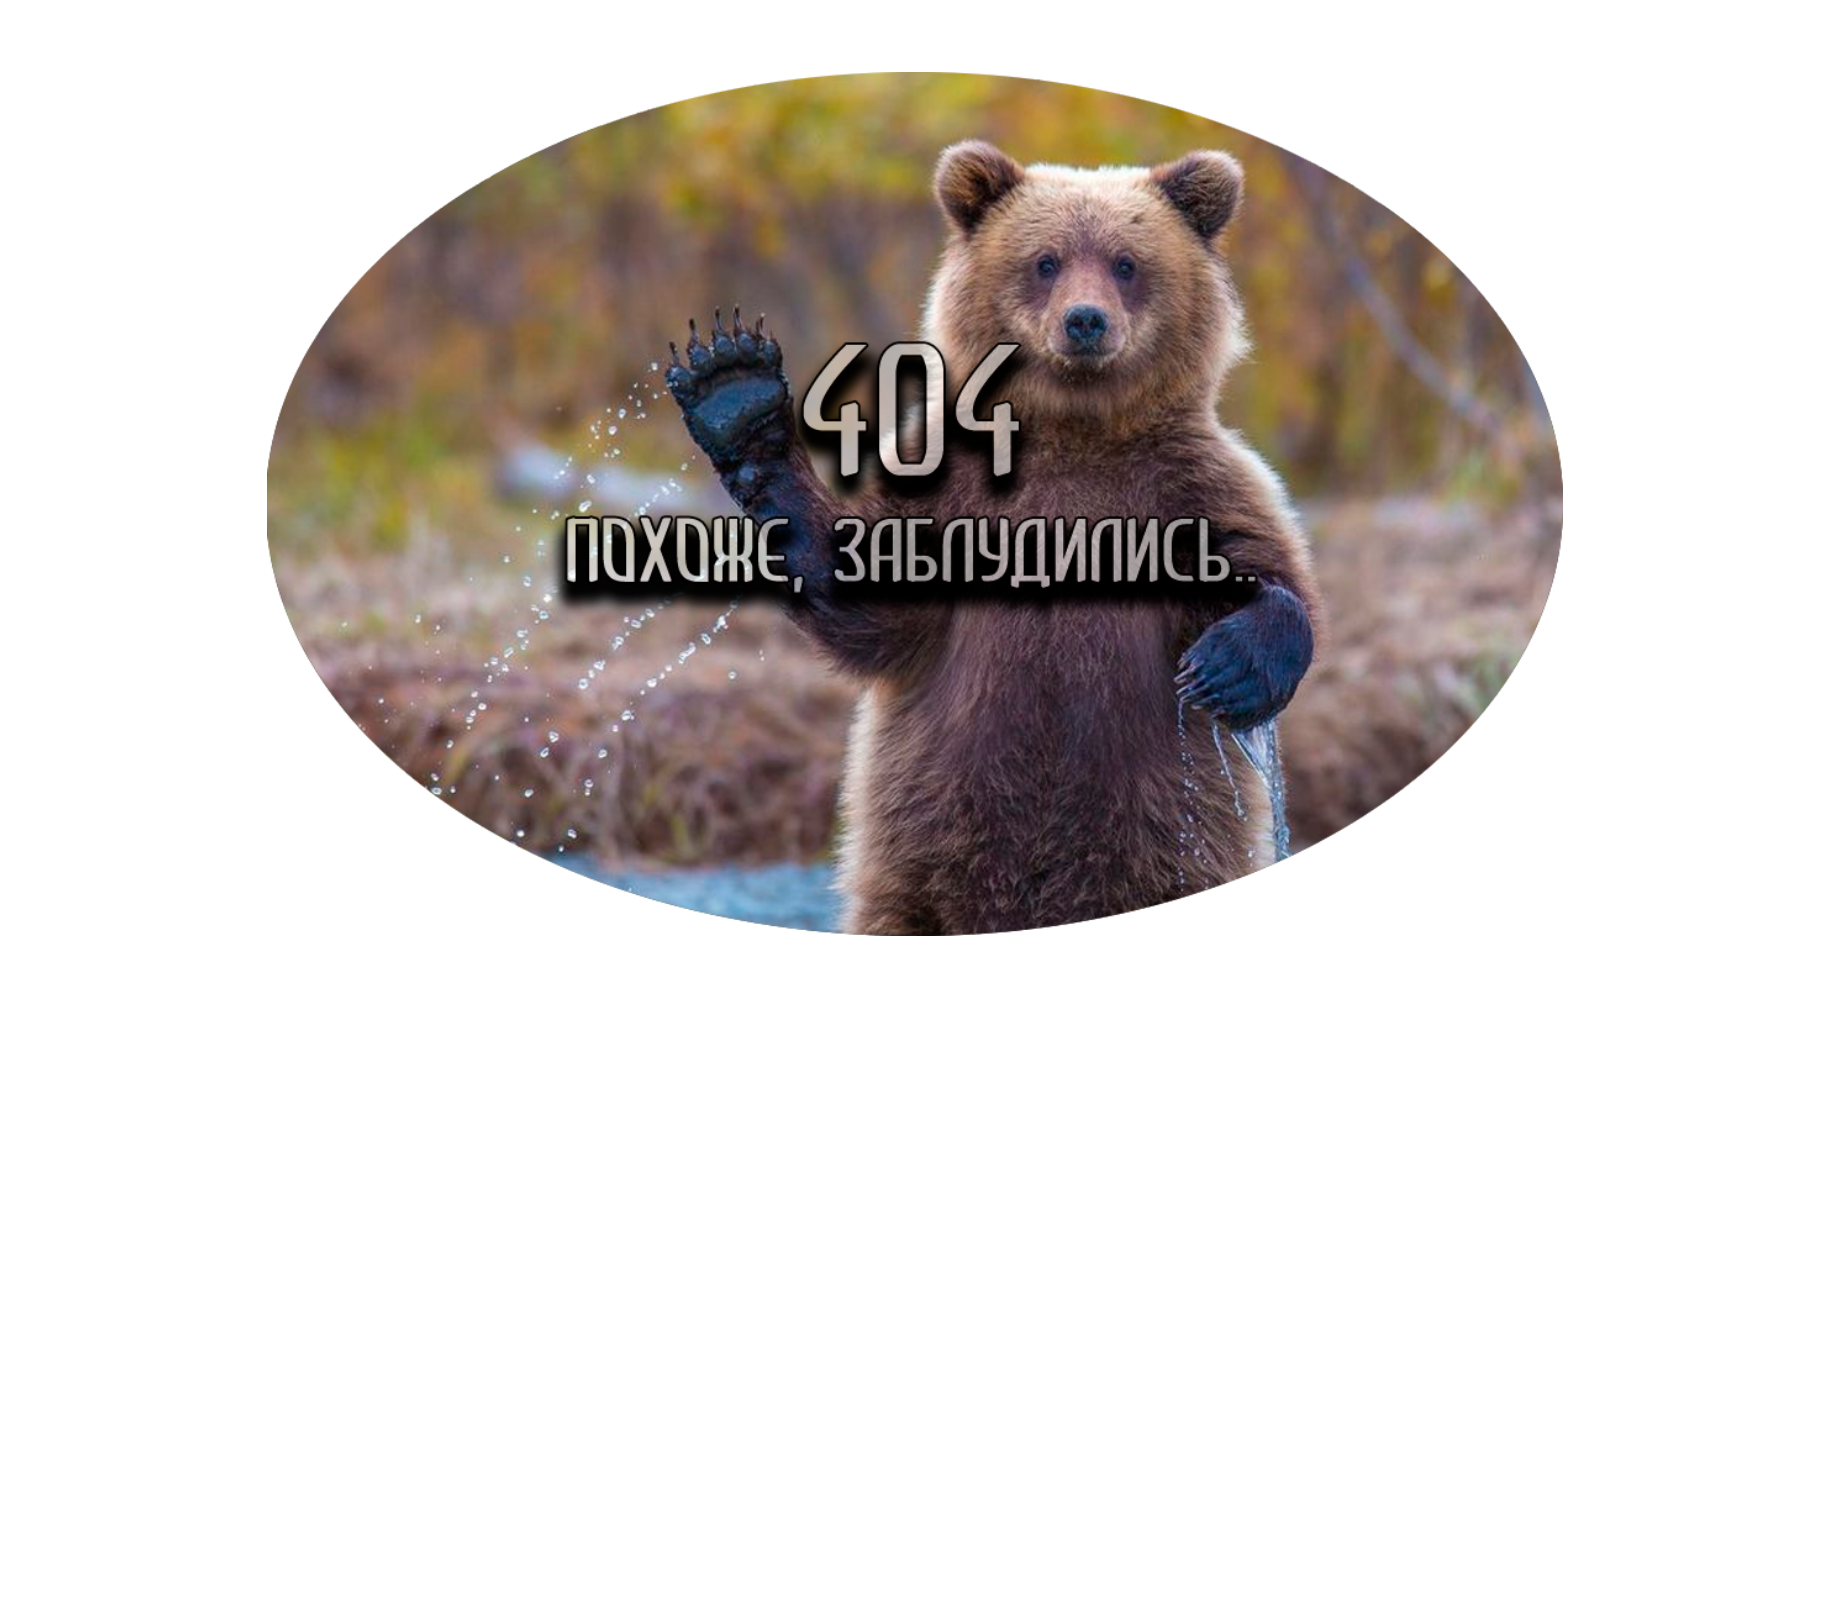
#include <cairo.h>
#include <math.h>
#include <stddef.h>


static void set_color(cairo_t *cr, unsigned color) {
    cairo_set_source_rgb(cr, (color >> 16) / 255.0, (color >> 8 & 255) / 255.0, (color & 255) / 255.0);
}

static void draw_image(cairo_t *cr, const char *path, double x, double y, double w, double h) {
    cairo_surface_t *image = cairo_image_surface_create_from_png(path);
    cairo_save(cr);
    cairo_set_source_surface(cr, image, x, y);
    cairo_rectangle(cr, x, y, w, h);
    cairo_fill(cr);
    cairo_restore(cr);
    cairo_surface_destroy(image);
}

int main(void) {
    cairo_surface_t *surface = cairo_image_surface_create(CAIRO_FORMAT_RGB24, 1829, 1613);
    cairo_t *cr = cairo_create(surface);
    cairo_font_options_t *options = cairo_font_options_create();
    cairo_font_options_set_hint_metrics(options, CAIRO_HINT_METRICS_OFF);
    cairo_font_options_set_hint_style(options, CAIRO_HINT_STYLE_NONE);
    cairo_set_font_options(cr, options);
    cairo_set_miter_limit(cr, 4);
    set_color(cr, 0xFFFFFF);
    cairo_paint(cr);
    draw_image(cr, "assets/img1.png", 267, 72, 1296, 864);
    cairo_surface_write_to_png(surface, "output.png");
    cairo_font_options_destroy(options);
    cairo_destroy(cr);
    cairo_surface_destroy(surface);
    return 0;
}
